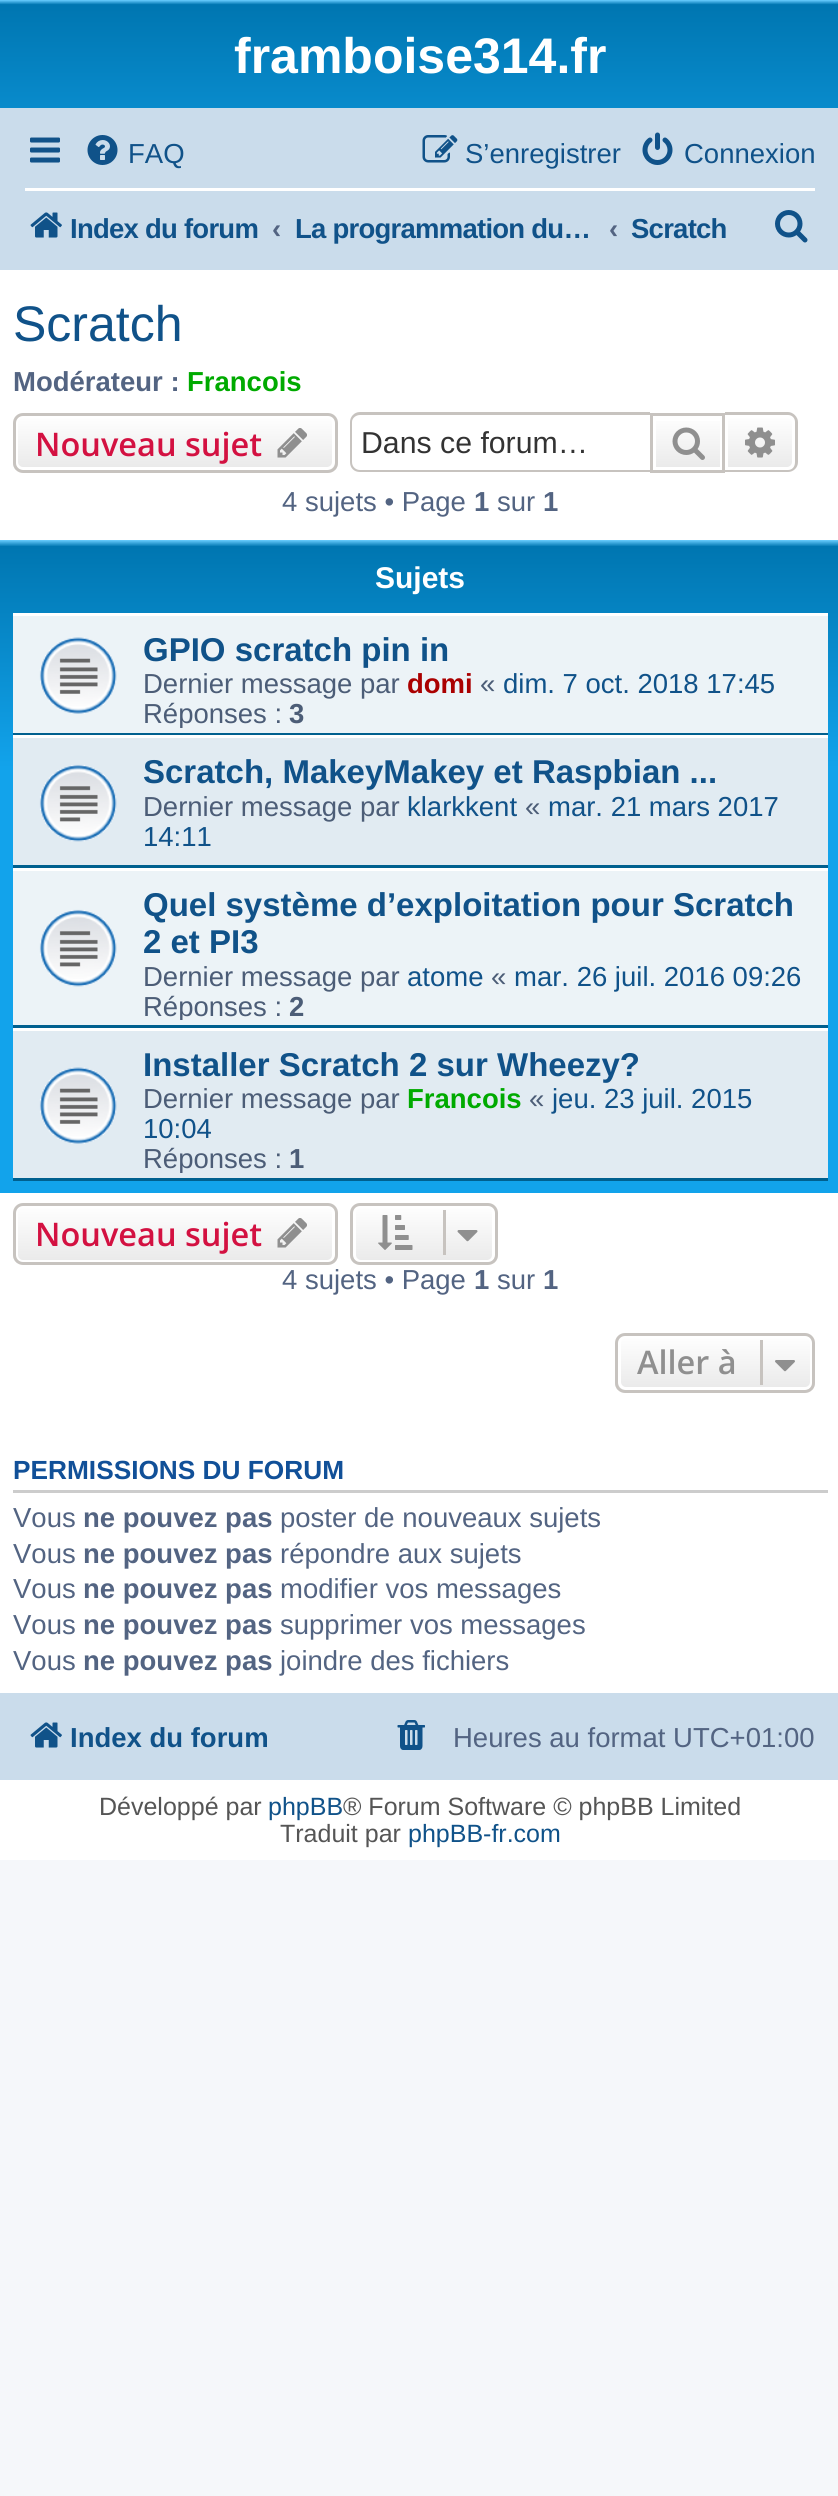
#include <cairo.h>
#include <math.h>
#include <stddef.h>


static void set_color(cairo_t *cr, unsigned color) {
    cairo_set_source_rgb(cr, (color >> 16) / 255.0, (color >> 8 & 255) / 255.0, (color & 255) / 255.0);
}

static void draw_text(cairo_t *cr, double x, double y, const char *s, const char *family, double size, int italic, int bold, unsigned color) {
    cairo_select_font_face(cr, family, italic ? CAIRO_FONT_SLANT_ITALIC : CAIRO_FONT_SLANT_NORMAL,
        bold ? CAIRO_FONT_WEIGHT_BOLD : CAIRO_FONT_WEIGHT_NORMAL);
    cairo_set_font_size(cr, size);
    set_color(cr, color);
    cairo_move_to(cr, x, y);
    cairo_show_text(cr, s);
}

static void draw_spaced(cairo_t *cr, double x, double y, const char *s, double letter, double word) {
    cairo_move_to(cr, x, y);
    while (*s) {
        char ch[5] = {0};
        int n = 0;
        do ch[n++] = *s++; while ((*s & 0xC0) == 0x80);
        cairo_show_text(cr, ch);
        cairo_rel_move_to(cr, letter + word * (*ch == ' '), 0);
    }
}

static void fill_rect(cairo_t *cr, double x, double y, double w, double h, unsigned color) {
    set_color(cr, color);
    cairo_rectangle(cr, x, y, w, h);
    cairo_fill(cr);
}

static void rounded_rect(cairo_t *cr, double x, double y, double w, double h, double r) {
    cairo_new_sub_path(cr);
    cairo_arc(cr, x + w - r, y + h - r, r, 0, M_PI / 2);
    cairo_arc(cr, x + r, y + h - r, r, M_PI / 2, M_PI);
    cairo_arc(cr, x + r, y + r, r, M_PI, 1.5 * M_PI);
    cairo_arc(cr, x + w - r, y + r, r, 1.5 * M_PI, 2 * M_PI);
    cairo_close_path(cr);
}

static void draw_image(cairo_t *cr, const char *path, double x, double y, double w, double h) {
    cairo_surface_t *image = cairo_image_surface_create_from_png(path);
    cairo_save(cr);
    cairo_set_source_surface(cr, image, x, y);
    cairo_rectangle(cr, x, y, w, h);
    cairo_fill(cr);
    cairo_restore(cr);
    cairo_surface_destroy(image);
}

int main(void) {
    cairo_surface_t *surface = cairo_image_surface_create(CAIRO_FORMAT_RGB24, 838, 2496);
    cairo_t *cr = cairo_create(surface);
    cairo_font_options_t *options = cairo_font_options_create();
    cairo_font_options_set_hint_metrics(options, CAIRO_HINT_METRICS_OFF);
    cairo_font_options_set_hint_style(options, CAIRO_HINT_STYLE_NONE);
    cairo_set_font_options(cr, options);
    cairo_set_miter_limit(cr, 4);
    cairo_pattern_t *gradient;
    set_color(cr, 0xF5F7FA);
    cairo_paint(cr);
    fill_rect(cr, 0, 270, 838, 1590, 0xFFFFFF);
    gradient = cairo_pattern_create_linear(420, 0, 420, 230);
    cairo_pattern_add_color_stop_rgba(gradient, 0, 0.416, 0.808, 1, 1);
    cairo_pattern_add_color_stop_rgba(gradient, 0.02, 0, 0.463, 0.694, 1);
    cairo_pattern_add_color_stop_rgba(gradient, 1, 0.071, 0.639, 0.922, 1);
    cairo_set_source(cr, gradient);
    cairo_pattern_destroy(gradient);
    cairo_rectangle(cr, 0, 0, 838, 108);
    cairo_fill(cr);
    draw_text(cr, 234, 73, "framboise314.fr", "Liberation Sans", 50, 0, 1, 0xFFFFFF);
    fill_rect(cr, 0, 108, 838, 162, 0xCADCEB);
    draw_image(cr, "assets/img1.png", 30, 137, 30, 26);
    draw_image(cr, "assets/img2.png", 87, 135, 31, 30);
    draw_text(cr, 128, 163, "FAQ", "Liberation Sans", 27.5, 0, 0, 0x105289);
    draw_image(cr, "assets/img3.png", 422, 135, 36, 28);
    draw_text(cr, 465, 163, "S’enregistrer", "Liberation Sans", 27.5, 0, 0, 0x105289);
    draw_image(cr, "assets/img4.png", 642, 132, 31, 33);
    draw_text(cr, 684, 163, "Connexion", "Liberation Sans", 27.5, 0, 0, 0x105289);
    fill_rect(cr, 25, 188, 790, 3, 0xFFFFFF);
    draw_image(cr, "assets/img5.png", 30, 212, 32, 26);
    cairo_select_font_face(cr, "Liberation Sans", CAIRO_FONT_SLANT_NORMAL, CAIRO_FONT_WEIGHT_BOLD);
    set_color(cr, 0x105289);
    draw_spaced(cr, 70, 238, "Index du forum", -0.75, 0);
    draw_text(cr, 272, 238, "‹", "Liberation Sans", 27.5, 0, 1, 0x536482);
    set_color(cr, 0x105289);
    draw_spaced(cr, 295, 238, "La programmation du…", -0.75, 0);
    draw_text(cr, 609, 238, "‹", "Liberation Sans", 27.5, 0, 1, 0x536482);
    set_color(cr, 0x105289);
    draw_spaced(cr, 631, 238, "Scratch", -0.75, 0);
    draw_image(cr, "assets/img6.png", 775, 210, 33, 33);
    draw_text(cr, 13, 341, "Scratch", "Liberation Sans", 50, 0, 0, 0x105289);
    draw_text(cr, 13, 391, "Modérateur :", "Liberation Sans", 27.5, 0, 1, 0x536482);
    draw_text(cr, 187, 391, "Francois", "Liberation Sans", 27.5, 0, 1, 0x00AA00);
    cairo_save(cr);
    rounded_rect(cr, 13, 413, 325, 60, 10);
    cairo_clip(cr);
    gradient = cairo_pattern_create_linear(175, 415, 175, 470);
    cairo_pattern_add_color_stop_rgba(gradient, 0, 1, 1, 1, 1);
    cairo_pattern_add_color_stop_rgba(gradient, 1, 0.914, 0.914, 0.914, 1);
    cairo_set_source(cr, gradient);
    cairo_pattern_destroy(gradient);
    cairo_rectangle(cr, 13, 415, 325, 55);
    cairo_fill(cr);
    cairo_restore(cr);
    rounded_rect(cr, 16.5, 416.5, 317, 52, 6.5);
    set_color(cr, 0xFFFFFF);
    cairo_set_line_width(cr, 3);
    cairo_stroke(cr);
    rounded_rect(cr, 14.5, 414.5, 322, 57, 8.5);
    set_color(cr, 0xC7C3BF);
    cairo_stroke(cr);
    draw_text(cr, 35, 456, "Nouveau sujet", "Open Sans SemiBold", 32.5, 0, 0, 0xD31141);
    draw_image(cr, "assets/img7.png", 277, 428, 30, 30);
    set_color(cr, 0xC7C3BF);
    cairo_set_fill_rule(cr, CAIRO_FILL_RULE_EVEN_ODD);
    cairo_new_path(cr);
    cairo_move_to(cr, 360, 412);
    cairo_line_to(cr, 650, 412);
    cairo_line_to(cr, 650, 472);
    cairo_line_to(cr, 360, 472);
    cairo_curve_to(cr, 354, 472, 350, 468, 350, 462);
    cairo_line_to(cr, 350, 422);
    cairo_curve_to(cr, 350, 417, 354, 412, 360, 412);
    cairo_close_path(cr);
    cairo_move_to(cr, 360, 415);
    cairo_line_to(cr, 650, 415);
    cairo_line_to(cr, 650, 470);
    cairo_line_to(cr, 360, 470);
    cairo_curve_to(cr, 356, 470, 352, 467, 352, 462);
    cairo_line_to(cr, 352, 422);
    cairo_curve_to(cr, 352, 418, 356, 415, 360, 415);
    cairo_close_path(cr);
    cairo_fill(cr);
    draw_text(cr, 361, 453, "Dans ce forum…", "Liberation Sans", 30.25, 0, 0, 0x333333);
    gradient = cairo_pattern_create_linear(688, 415, 688, 470);
    cairo_pattern_add_color_stop_rgba(gradient, 0, 1, 1, 1, 1);
    cairo_pattern_add_color_stop_rgba(gradient, 1, 0.914, 0.914, 0.914, 1);
    cairo_set_source(cr, gradient);
    cairo_pattern_destroy(gradient);
    cairo_rectangle(cr, 656, 421, 64, 46);
    cairo_fill(cr);
    cairo_rectangle(cr, 651.5, 414.5, 72, 57);
    set_color(cr, 0xC7C3BF);
    cairo_stroke(cr);
    draw_image(cr, "assets/img8.png", 672, 427, 33, 33);
    gradient = cairo_pattern_create_linear(760, 415, 760, 470);
    cairo_pattern_add_color_stop_rgba(gradient, 0, 1, 1, 1, 1);
    cairo_pattern_add_color_stop_rgba(gradient, 1, 0.914, 0.914, 0.914, 1);
    cairo_set_source(cr, gradient);
    cairo_pattern_destroy(gradient);
    cairo_new_path(cr);
    cairo_move_to(cr, 726.5, 416.5);
    cairo_line_to(cr, 787, 416.5);
    cairo_curve_to(cr, 790.5, 416.5, 793.5, 419.5, 793.5, 423);
    cairo_line_to(cr, 793.5, 462);
    cairo_curve_to(cr, 793.5, 465.5, 790.5, 468.5, 787, 468.5);
    cairo_line_to(cr, 726.5, 468.5);
    cairo_close_path(cr);
    cairo_fill_preserve(cr);
    set_color(cr, 0xFFFFFF);
    cairo_stroke(cr);
    set_color(cr, 0xC7C3BF);
    cairo_new_path(cr);
    cairo_move_to(cr, 725, 412);
    cairo_line_to(cr, 788, 412);
    cairo_curve_to(cr, 793, 412, 798, 417, 798, 422);
    cairo_line_to(cr, 798, 462);
    cairo_curve_to(cr, 798, 468, 793, 472, 788, 472);
    cairo_line_to(cr, 725, 472);
    cairo_close_path(cr);
    cairo_move_to(cr, 725, 415);
    cairo_line_to(cr, 788, 415);
    cairo_curve_to(cr, 792, 415, 795, 418, 795, 422);
    cairo_line_to(cr, 795, 462);
    cairo_curve_to(cr, 795, 467, 792, 470, 788, 470);
    cairo_line_to(cr, 725, 470);
    cairo_close_path(cr);
    cairo_fill(cr);
    draw_image(cr, "assets/img9.png", 745, 427, 30, 31);
    draw_text(cr, 282, 511, "4 sujets • Page", "Liberation Sans", 27.5, 0, 0, 0x536482);
    draw_text(cr, 474, 511, "1", "Liberation Sans", 27.5, 0, 1, 0x536482);
    draw_text(cr, 497, 511, "sur", "Liberation Sans", 27.5, 0, 0, 0x536482);
    draw_text(cr, 543, 511, "1", "Liberation Sans", 27.5, 0, 1, 0x536482);
    gradient = cairo_pattern_create_linear(420, 540, 420, 1193);
    cairo_pattern_add_color_stop_rgba(gradient, 0, 0.416, 0.808, 1, 1);
    cairo_pattern_add_color_stop_rgba(gradient, 0.01, 0, 0.463, 0.694, 1);
    cairo_pattern_add_color_stop_rgba(gradient, 0.35, 0.071, 0.639, 0.922, 1);
    cairo_pattern_add_color_stop_rgba(gradient, 1, 0.071, 0.639, 0.922, 1);
    cairo_set_source(cr, gradient);
    cairo_pattern_destroy(gradient);
    cairo_rectangle(cr, 0, 540, 838, 653);
    cairo_fill(cr);
    draw_text(cr, 375, 588, "Sujets", "Liberation Sans", 30, 0, 1, 0xFFFFFF);
    fill_rect(cr, 13, 616, 815, 117, 0xECF3F7);
    fill_rect(cr, 13, 613, 815, 3, 0xFFFFFF);
    fill_rect(cr, 13, 733, 815, 2, 0x00608F);
    draw_image(cr, "assets/img10.png", 39, 637, 78, 77);
    draw_text(cr, 143, 661, "GPIO scratch pin in", "Liberation Sans", 33, 0, 1, 0x105289);
    draw_text(cr, 143, 693, "Dernier message par", "Liberation Sans", 27.5, 0, 0, 0x4C5D77);
    draw_text(cr, 407, 693, "domi", "Liberation Sans", 27.5, 0, 1, 0xAA0000);
    draw_text(cr, 480, 693, "«", "Liberation Sans", 27.5, 0, 0, 0x4C5D77);
    draw_text(cr, 503, 693, "dim. 7 oct. 2018 17:45", "Liberation Sans", 27.5, 0, 0, 0x105289);
    cairo_save(cr);
    cairo_set_fill_rule(cr, CAIRO_FILL_RULE_WINDING);
    cairo_rectangle(cr, 13, 620, 815, 108);
    cairo_clip(cr);
    draw_text(cr, 143, 723, "Réponses :", "Liberation Sans", 27.5, 0, 0, 0x4C5D77);
    cairo_restore(cr);
    draw_text(cr, 289, 723, "3", "Liberation Sans", 27.5, 0, 1, 0x4C5D77);
    fill_rect(cr, 13, 738, 815, 127, 0xE1EBF2);
    fill_rect(cr, 13, 735, 815, 3, 0xFFFFFF);
    fill_rect(cr, 13, 865, 815, 3, 0x00608F);
    draw_image(cr, "assets/img11.png", 39, 764, 78, 78);
    draw_text(cr, 143, 783, "Scratch, MakeyMakey et Raspbian ...", "Liberation Sans", 33, 0, 1, 0x105289);
    draw_text(cr, 143, 816, "Dernier message par", "Liberation Sans", 27.5, 0, 0, 0x4C5D77);
    draw_text(cr, 407, 816, "klarkkent", "Liberation Sans", 27.5, 0, 0, 0x105289);
    draw_text(cr, 525, 816, "«", "Liberation Sans", 27.5, 0, 0, 0x4C5D77);
    draw_text(cr, 548, 816, "mar. 21 mars 2017", "Liberation Sans", 27.5, 0, 0, 0x105289);
    draw_text(cr, 143, 846, "14:11", "Liberation Sans", 27.5, 0, 0, 0x105289);
    fill_rect(cr, 13, 871, 815, 154, 0xECF3F7);
    fill_rect(cr, 13, 868, 815, 3, 0xFFFFFF);
    fill_rect(cr, 13, 1025, 815, 3, 0x00608F);
    draw_image(cr, "assets/img12.png", 39, 909, 78, 78);
    draw_text(cr, 143, 916, "Quel système d’exploitation pour Scratch", "Liberation Sans", 33, 0, 1, 0x105289);
    draw_text(cr, 143, 953, "2 et PI3", "Liberation Sans", 33, 0, 1, 0x105289);
    draw_text(cr, 143, 986, "Dernier message par", "Liberation Sans", 27.5, 0, 0, 0x4C5D77);
    draw_text(cr, 407, 986, "atome", "Liberation Sans", 27.5, 0, 0, 0x105289);
    draw_text(cr, 491, 986, "«", "Liberation Sans", 27.5, 0, 0, 0x4C5D77);
    draw_text(cr, 514, 986, "mar. 26 juil. 2016 09:26", "Liberation Sans", 27.5, 0, 0, 0x105289);
    cairo_save(cr);
    cairo_set_fill_rule(cr, CAIRO_FILL_RULE_WINDING);
    cairo_rectangle(cr, 13, 875, 815, 145);
    cairo_clip(cr);
    draw_text(cr, 143, 1016, "Réponses :", "Liberation Sans", 27.5, 0, 0, 0x4C5D77);
    cairo_restore(cr);
    draw_text(cr, 289, 1016, "2", "Liberation Sans", 27.5, 0, 1, 0x4C5D77);
    fill_rect(cr, 13, 1031, 815, 147, 0xE1EBF2);
    fill_rect(cr, 13, 1028, 815, 3, 0xFFFFFF);
    fill_rect(cr, 13, 1178, 815, 3, 0x00608F);
    draw_image(cr, "assets/img13.png", 39, 1067, 78, 77);
    draw_text(cr, 143, 1076, "Installer Scratch 2 sur Wheezy?", "Liberation Sans", 33, 0, 1, 0x105289);
    draw_text(cr, 143, 1108, "Dernier message par", "Liberation Sans", 27.5, 0, 0, 0x4C5D77);
    draw_text(cr, 407, 1108, "Francois", "Liberation Sans", 27.5, 0, 1, 0x00AA00);
    draw_text(cr, 529, 1108, "«", "Liberation Sans", 27.5, 0, 0, 0x4C5D77);
    draw_text(cr, 552, 1108, "jeu. 23 juil. 2015", "Liberation Sans", 27.5, 0, 0, 0x105289);
    draw_text(cr, 143, 1138, "10:04", "Liberation Sans", 27.5, 0, 0, 0x105289);
    cairo_save(cr);
    cairo_set_fill_rule(cr, CAIRO_FILL_RULE_WINDING);
    cairo_rectangle(cr, 13, 1035, 815, 138);
    cairo_clip(cr);
    draw_text(cr, 143, 1168, "Réponses :", "Liberation Sans", 27.5, 0, 0, 0x4C5D77);
    cairo_restore(cr);
    draw_text(cr, 289, 1168, "1", "Liberation Sans", 27.5, 0, 1, 0x4C5D77);
    cairo_save(cr);
    cairo_set_fill_rule(cr, CAIRO_FILL_RULE_WINDING);
    rounded_rect(cr, 13, 1203, 325, 62, 10);
    cairo_clip(cr);
    gradient = cairo_pattern_create_linear(175, 1205, 175, 1263);
    cairo_pattern_add_color_stop_rgba(gradient, 0, 1, 1, 1, 1);
    cairo_pattern_add_color_stop_rgba(gradient, 1, 0.914, 0.914, 0.914, 1);
    cairo_set_source(cr, gradient);
    cairo_pattern_destroy(gradient);
    cairo_rectangle(cr, 13, 1205, 325, 58);
    cairo_fill(cr);
    cairo_restore(cr);
    rounded_rect(cr, 16.5, 1206.5, 317, 55, 6.5);
    set_color(cr, 0xFFFFFF);
    cairo_stroke(cr);
    rounded_rect(cr, 14.5, 1204.5, 322, 59, 8.5);
    set_color(cr, 0xC7C3BF);
    cairo_stroke(cr);
    draw_text(cr, 35, 1246, "Nouveau sujet", "Open Sans SemiBold", 32.5, 0, 0, 0xD31141);
    draw_image(cr, "assets/img14.png", 277, 1218, 30, 30);
    cairo_save(cr);
    cairo_set_fill_rule(cr, CAIRO_FILL_RULE_WINDING);
    rounded_rect(cr, 350, 1203, 148, 62, 10);
    cairo_clip(cr);
    gradient = cairo_pattern_create_linear(424, 1205, 424, 1263);
    cairo_pattern_add_color_stop_rgba(gradient, 0, 1, 1, 1, 1);
    cairo_pattern_add_color_stop_rgba(gradient, 1, 0.914, 0.914, 0.914, 1);
    cairo_set_source(cr, gradient);
    cairo_pattern_destroy(gradient);
    cairo_rectangle(cr, 350, 1205, 148, 58);
    cairo_fill(cr);
    cairo_restore(cr);
    rounded_rect(cr, 354.5, 1206.5, 139, 55, 6.5);
    set_color(cr, 0xFFFFFF);
    cairo_stroke(cr);
    rounded_rect(cr, 351.5, 1204.5, 145, 59, 8.5);
    set_color(cr, 0xC7C3BF);
    cairo_stroke(cr);
    draw_image(cr, "assets/img15.png", 378, 1215, 35, 35);
    fill_rect(cr, 443, 1210, 3, 45, 0xC7C3BF);
    draw_image(cr, "assets/img16.png", 457, 1230, 21, 12);
    draw_text(cr, 282, 1289, "4 sujets • Page", "Liberation Sans", 27.5, 0, 0, 0x536482);
    draw_text(cr, 474, 1289, "1", "Liberation Sans", 27.5, 0, 1, 0x536482);
    draw_text(cr, 497, 1289, "sur", "Liberation Sans", 27.5, 0, 0, 0x536482);
    draw_text(cr, 543, 1289, "1", "Liberation Sans", 27.5, 0, 1, 0x536482);
    cairo_save(cr);
    cairo_set_fill_rule(cr, CAIRO_FILL_RULE_WINDING);
    rounded_rect(cr, 615, 1333, 200, 60, 10);
    cairo_clip(cr);
    gradient = cairo_pattern_create_linear(715, 1335, 715, 1390);
    cairo_pattern_add_color_stop_rgba(gradient, 0, 1, 1, 1, 1);
    cairo_pattern_add_color_stop_rgba(gradient, 1, 0.914, 0.914, 0.914, 1);
    cairo_set_source(cr, gradient);
    cairo_pattern_destroy(gradient);
    cairo_rectangle(cr, 615, 1335, 200, 55);
    cairo_fill(cr);
    cairo_restore(cr);
    rounded_rect(cr, 619.5, 1336.5, 192, 52, 6.5);
    set_color(cr, 0xFFFFFF);
    cairo_stroke(cr);
    rounded_rect(cr, 616.5, 1334.5, 197, 57, 8.5);
    set_color(cr, 0xC7C3BF);
    cairo_stroke(cr);
    draw_text(cr, 637, 1374, "Aller à", "Open Sans SemiBold", 32.5, 0, 0, 0x8F8F8F);
    fill_rect(cr, 760, 1340, 3, 45, 0xC7C3BF);
    draw_image(cr, "assets/img17.png", 775, 1360, 20, 12);
    fill_rect(cr, 13, 1490, 815, 3, 0xCCCCCC);
    draw_text(cr, 13, 1479, "PERMISSIONS DU FORUM", "Liberation Sans", 26.25, 0, 1, 0x115098);
    draw_text(cr, 13, 1527, "Vous", "Liberation Sans", 27.5, 0, 0, 0x536482);
    draw_text(cr, 83, 1527, "ne pouvez pas", "Liberation Sans", 27.5, 0, 1, 0x536482);
    draw_text(cr, 280, 1527, "poster de nouveaux sujets", "Liberation Sans", 27.5, 0, 0, 0x536482);
    draw_text(cr, 13, 1563, "Vous", "Liberation Sans", 27.5, 0, 0, 0x536482);
    draw_text(cr, 83, 1563, "ne pouvez pas", "Liberation Sans", 27.5, 0, 1, 0x536482);
    draw_text(cr, 280, 1563, "répondre aux sujets", "Liberation Sans", 27.5, 0, 0, 0x536482);
    draw_text(cr, 13, 1598, "Vous", "Liberation Sans", 27.5, 0, 0, 0x536482);
    draw_text(cr, 83, 1598, "ne pouvez pas", "Liberation Sans", 27.5, 0, 1, 0x536482);
    draw_text(cr, 280, 1598, "modifier vos messages", "Liberation Sans", 27.5, 0, 0, 0x536482);
    draw_text(cr, 13, 1634, "Vous", "Liberation Sans", 27.5, 0, 0, 0x536482);
    draw_text(cr, 83, 1634, "ne pouvez pas", "Liberation Sans", 27.5, 0, 1, 0x536482);
    draw_text(cr, 280, 1634, "supprimer vos messages", "Liberation Sans", 27.5, 0, 0, 0x536482);
    draw_text(cr, 13, 1670, "Vous", "Liberation Sans", 27.5, 0, 0, 0x536482);
    draw_text(cr, 83, 1670, "ne pouvez pas", "Liberation Sans", 27.5, 0, 1, 0x536482);
    draw_text(cr, 280, 1670, "joindre des fichiers", "Liberation Sans", 27.5, 0, 0, 0x536482);
    fill_rect(cr, 0, 1693, 838, 87, 0xCADCEB);
    draw_image(cr, "assets/img5.png", 30, 1722, 32, 26);
    draw_text(cr, 70, 1747, "Index du forum", "Liberation Sans", 27.5, 0, 1, 0x105289);
    draw_image(cr, "assets/img18.png", 397, 1720, 28, 30);
    draw_text(cr, 453, 1747, "Heures au format UTC+01:00", "Liberation Sans", 27.5, 0, 0, 0x536482);
    draw_text(cr, 99, 1815, "Développé par", "Liberation Sans", 25, 0, 0, 0x555555);
    draw_text(cr, 268, 1815, "phpBB", "Liberation Sans", 25, 0, 0, 0x105289);
    draw_text(cr, 343, 1815, "® Forum Software © phpBB Limited", "Liberation Sans", 25, 0, 0, 0x555555);
    draw_text(cr, 280, 1842, "Traduit par", "Liberation Sans", 25, 0, 0, 0x555555);
    draw_text(cr, 408, 1842, "phpBB-fr.com", "Liberation Sans", 25, 0, 0, 0x105289);
    cairo_surface_write_to_png(surface, "output.png");
    cairo_font_options_destroy(options);
    cairo_destroy(cr);
    cairo_surface_destroy(surface);
    return 0;
}
